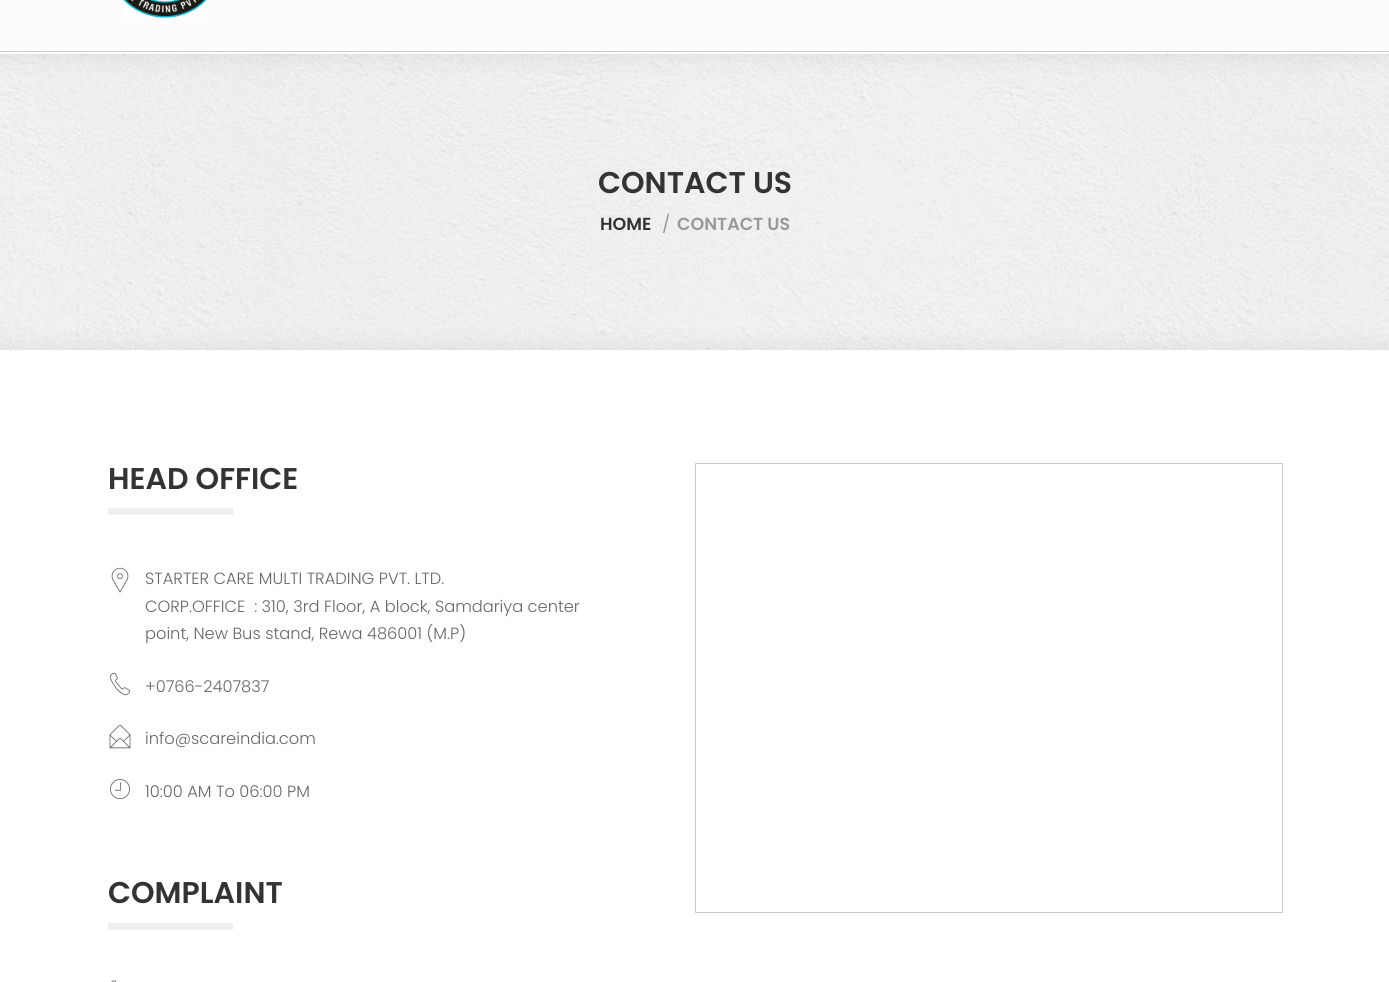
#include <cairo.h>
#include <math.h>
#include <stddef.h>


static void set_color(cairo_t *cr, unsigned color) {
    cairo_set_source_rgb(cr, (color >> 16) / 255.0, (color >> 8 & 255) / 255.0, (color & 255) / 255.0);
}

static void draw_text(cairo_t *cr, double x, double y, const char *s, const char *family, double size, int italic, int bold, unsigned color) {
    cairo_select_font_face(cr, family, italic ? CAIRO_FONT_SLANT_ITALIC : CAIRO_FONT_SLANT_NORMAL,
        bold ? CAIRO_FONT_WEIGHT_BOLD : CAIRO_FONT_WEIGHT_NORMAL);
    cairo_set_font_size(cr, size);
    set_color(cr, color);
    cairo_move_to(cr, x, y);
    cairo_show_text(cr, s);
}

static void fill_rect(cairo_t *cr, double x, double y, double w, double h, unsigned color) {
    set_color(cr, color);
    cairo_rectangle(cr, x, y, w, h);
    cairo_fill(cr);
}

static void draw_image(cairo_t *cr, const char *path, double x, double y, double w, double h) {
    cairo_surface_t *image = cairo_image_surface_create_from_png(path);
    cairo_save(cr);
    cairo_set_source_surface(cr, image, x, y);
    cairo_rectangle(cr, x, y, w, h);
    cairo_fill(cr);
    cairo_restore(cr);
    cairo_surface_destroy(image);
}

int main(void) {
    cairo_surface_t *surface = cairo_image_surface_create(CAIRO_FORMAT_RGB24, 1389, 982);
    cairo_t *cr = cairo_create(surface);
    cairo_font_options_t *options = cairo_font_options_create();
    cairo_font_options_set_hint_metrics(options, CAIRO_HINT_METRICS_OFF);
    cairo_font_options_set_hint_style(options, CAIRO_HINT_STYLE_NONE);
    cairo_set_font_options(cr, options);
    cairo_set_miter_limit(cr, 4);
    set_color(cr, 0xFFFFFF);
    cairo_paint(cr);
    fill_rect(cr, 0, 0, 1389, 53, 0xFCFCFC);
    fill_rect(cr, 0, 51, 1389, 1, 0xCCCCCC);
    draw_image(cr, "assets/img1.png", 123, 0, 84, 18);
    draw_image(cr, "assets/img2.png", 0, 53, 1389, 297);
    draw_text(cr, 598, 193, "CONTACT US", "Poppins SemiBold", 30, 0, 0, 0x333333);
    draw_text(cr, 600, 230, "HOME", "Poppins SemiBold", 17.5, 0, 0, 0x333333);
    draw_text(cr, 662, 230, "/", "Poppins", 17.5, 0, 0, 0x999999);
    draw_text(cr, 677, 230, "CONTACT US", "Poppins SemiBold", 17.5, 0, 0, 0x999999);
    draw_text(cr, 108, 489, "HEAD OFFICE", "Poppins SemiBold", 30, 0, 0, 0x333333);
    fill_rect(cr, 108, 508, 125, 7, 0xEEEEEE);
    draw_image(cr, "assets/img3.png", 111, 567, 18, 26);
    draw_text(cr, 145, 584, "STARTER CARE MULTI TRADING PVT. LTD.", "Poppins Light", 16.25, 0, 0, 0x666666);
    draw_text(cr, 145, 612, "CORP.OFFICE  : 310, 3rd Floor, A block, Samdariya center", "Poppins Light", 16.25, 0, 0, 0x666666);
    draw_text(cr, 145, 639, "point, New Bus stand, Rewa 486001 (M.P)", "Poppins Light", 16.25, 0, 0, 0x666666);
    draw_image(cr, "assets/img4.png", 110, 672, 20, 24);
    draw_text(cr, 145, 692, "+0766-2407837", "Poppins Light", 16.25, 0, 0, 0x666666);
    draw_image(cr, "assets/img5.png", 109, 724, 22, 25);
    draw_text(cr, 145, 744, "info@scareindia.com", "Poppins Light", 16.25, 0, 0, 0x666666);
    draw_image(cr, "assets/img6.png", 110, 779, 20, 20);
    draw_text(cr, 145, 797, "10:00 AM To 06:00 PM", "Poppins Light", 16.25, 0, 0, 0x666666);
    draw_text(cr, 108, 903, "COMPLAINT", "Poppins SemiBold", 30, 0, 0, 0x333333);
    fill_rect(cr, 108, 923, 125, 7, 0xEEEEEE);
    draw_image(cr, "assets/img7.png", 111, 980, 6, 2);
    cairo_rectangle(cr, 695.5, 463.5, 587, 449);
    set_color(cr, 0xCCCCCC);
    cairo_set_line_width(cr, 1);
    cairo_stroke(cr);
    cairo_surface_write_to_png(surface, "output.png");
    cairo_font_options_destroy(options);
    cairo_destroy(cr);
    cairo_surface_destroy(surface);
    return 0;
}
